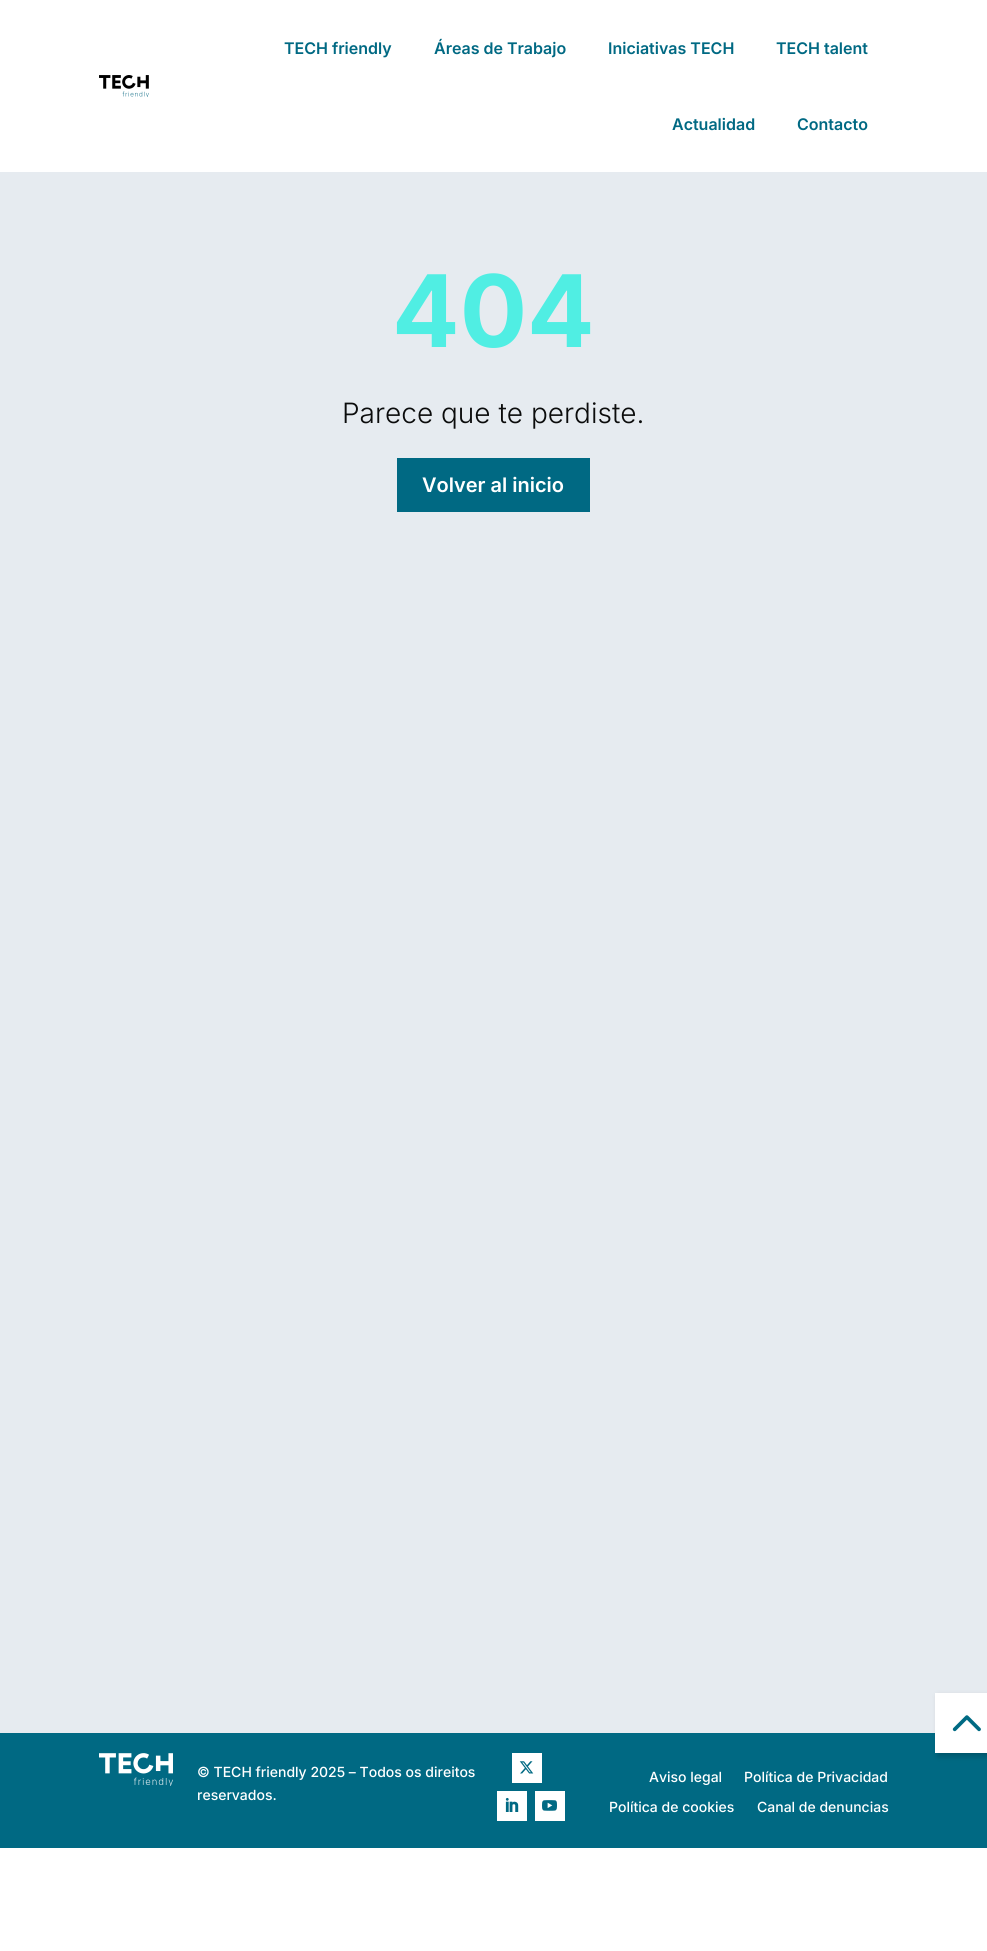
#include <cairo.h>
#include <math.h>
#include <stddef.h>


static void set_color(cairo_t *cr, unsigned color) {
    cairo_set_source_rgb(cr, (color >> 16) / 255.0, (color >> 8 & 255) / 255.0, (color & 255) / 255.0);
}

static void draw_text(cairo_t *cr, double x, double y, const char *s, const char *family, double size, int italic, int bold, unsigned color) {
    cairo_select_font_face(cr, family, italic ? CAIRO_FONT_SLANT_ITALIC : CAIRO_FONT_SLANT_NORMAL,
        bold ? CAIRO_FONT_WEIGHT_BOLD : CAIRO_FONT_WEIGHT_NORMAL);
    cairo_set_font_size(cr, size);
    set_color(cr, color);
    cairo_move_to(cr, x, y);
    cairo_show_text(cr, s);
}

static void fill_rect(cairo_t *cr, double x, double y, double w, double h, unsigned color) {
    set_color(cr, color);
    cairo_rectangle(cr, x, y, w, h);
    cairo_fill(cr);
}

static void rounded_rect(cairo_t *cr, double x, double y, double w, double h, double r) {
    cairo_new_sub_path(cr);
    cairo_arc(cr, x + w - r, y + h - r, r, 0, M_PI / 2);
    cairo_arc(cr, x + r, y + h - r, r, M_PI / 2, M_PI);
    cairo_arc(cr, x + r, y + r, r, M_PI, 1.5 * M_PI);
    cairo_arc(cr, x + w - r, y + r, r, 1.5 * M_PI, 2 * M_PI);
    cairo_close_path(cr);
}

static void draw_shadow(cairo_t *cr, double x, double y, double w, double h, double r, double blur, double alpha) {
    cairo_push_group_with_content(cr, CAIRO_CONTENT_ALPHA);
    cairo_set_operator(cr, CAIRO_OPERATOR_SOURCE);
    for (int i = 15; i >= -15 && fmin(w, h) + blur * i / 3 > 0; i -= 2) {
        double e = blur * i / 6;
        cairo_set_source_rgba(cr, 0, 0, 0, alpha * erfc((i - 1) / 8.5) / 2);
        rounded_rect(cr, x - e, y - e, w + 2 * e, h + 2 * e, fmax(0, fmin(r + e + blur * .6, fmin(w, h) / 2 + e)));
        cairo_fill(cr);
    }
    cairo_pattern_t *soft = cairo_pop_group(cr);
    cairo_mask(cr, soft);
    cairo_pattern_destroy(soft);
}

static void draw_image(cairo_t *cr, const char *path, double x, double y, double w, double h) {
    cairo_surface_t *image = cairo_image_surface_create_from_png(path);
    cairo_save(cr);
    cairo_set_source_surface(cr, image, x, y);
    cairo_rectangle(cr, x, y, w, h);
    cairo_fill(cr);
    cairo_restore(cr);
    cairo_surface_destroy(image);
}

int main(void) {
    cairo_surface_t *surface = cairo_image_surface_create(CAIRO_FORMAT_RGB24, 987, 1951);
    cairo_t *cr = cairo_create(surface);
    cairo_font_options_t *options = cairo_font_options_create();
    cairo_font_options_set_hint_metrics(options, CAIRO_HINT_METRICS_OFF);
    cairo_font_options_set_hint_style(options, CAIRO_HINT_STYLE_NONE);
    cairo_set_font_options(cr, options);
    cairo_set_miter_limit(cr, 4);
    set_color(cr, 0xFFFFFF);
    cairo_paint(cr);
    draw_image(cr, "assets/img1.png", 99, 75, 50, 22);
    draw_text(cr, 284, 54, "TECH friendly", "Inter SemiBold", 16, 0, 0, 0x006983);
    draw_text(cr, 434, 54, "Áreas de Trabajo", "Inter SemiBold", 16, 0, 0, 0x006983);
    draw_text(cr, 608, 54, "Iniciativas TECH", "Inter SemiBold", 16, 0, 0, 0x006983);
    draw_text(cr, 776, 54, "TECH talent", "Inter SemiBold", 16, 0, 0, 0x006983);
    draw_text(cr, 672, 130, "Actualidad", "Inter SemiBold", 16, 0, 0, 0x006983);
    draw_text(cr, 797, 130, "Contacto", "Inter SemiBold", 16, 0, 0, 0x006983);
    fill_rect(cr, 0, 172, 987, 1561, 0xE6EBF0);
    draw_text(cr, 392, 347, "404", "Inter", 100, 0, 1, 0x50EEE3);
    draw_text(cr, 342, 423, "Parece que te perdiste.", "Inter Light", 28, 0, 0, 0x0B0C0C);
    fill_rect(cr, 397, 458, 193, 54, 0x006983);
    draw_text(cr, 422, 492, "Volver al inicio", "Inter SemiBold", 20, 0, 0, 0xFFFFFF);
    fill_rect(cr, 0, 1733, 987, 115, 0x006983);
    draw_image(cr, "assets/img2.png", 99, 1753, 74, 33);
    draw_text(cr, 197, 1777, "© TECH friendly 2025 – Todos os direitos", "Inter Medium", 14, 0, 0, 0xFFFFFF);
    draw_text(cr, 197, 1800, "reservados.", "Inter Medium", 14, 0, 0, 0xFFFFFF);
    fill_rect(cr, 512, 1753, 30, 30, 0xFFFFFF);
    draw_image(cr, "assets/img3.png", 519, 1761, 15, 13);
    fill_rect(cr, 497, 1791, 30, 30, 0xFFFFFF);
    draw_image(cr, "assets/img4.png", 505, 1797, 14, 15);
    fill_rect(cr, 535, 1791, 30, 30, 0xFFFFFF);
    draw_image(cr, "assets/img5.png", 542, 1800, 15, 11);
    set_color(cr, 0x000000);
    draw_shadow(cr, 938, 1696, 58, 60, 0, 3, 0.21);
    fill_rect(cr, 935, 1693, 52, 60, 0xFFFFFF);
    draw_image(cr, "assets/img6.png", 952, 1715, 29, 17);
    draw_text(cr, 649, 1782, "Aviso legal", "Inter Medium", 14, 0, 0, 0xFFFFFF);
    draw_text(cr, 744, 1782, "Política de Privacidad", "Inter Medium", 14, 0, 0, 0xFFFFFF);
    draw_text(cr, 609, 1812, "Política de cookies", "Inter Medium", 14, 0, 0, 0xFFFFFF);
    draw_text(cr, 757, 1812, "Canal de denuncias", "Inter Medium", 14, 0, 0, 0xFFFFFF);
    cairo_surface_write_to_png(surface, "output.png");
    cairo_font_options_destroy(options);
    cairo_destroy(cr);
    cairo_surface_destroy(surface);
    return 0;
}
